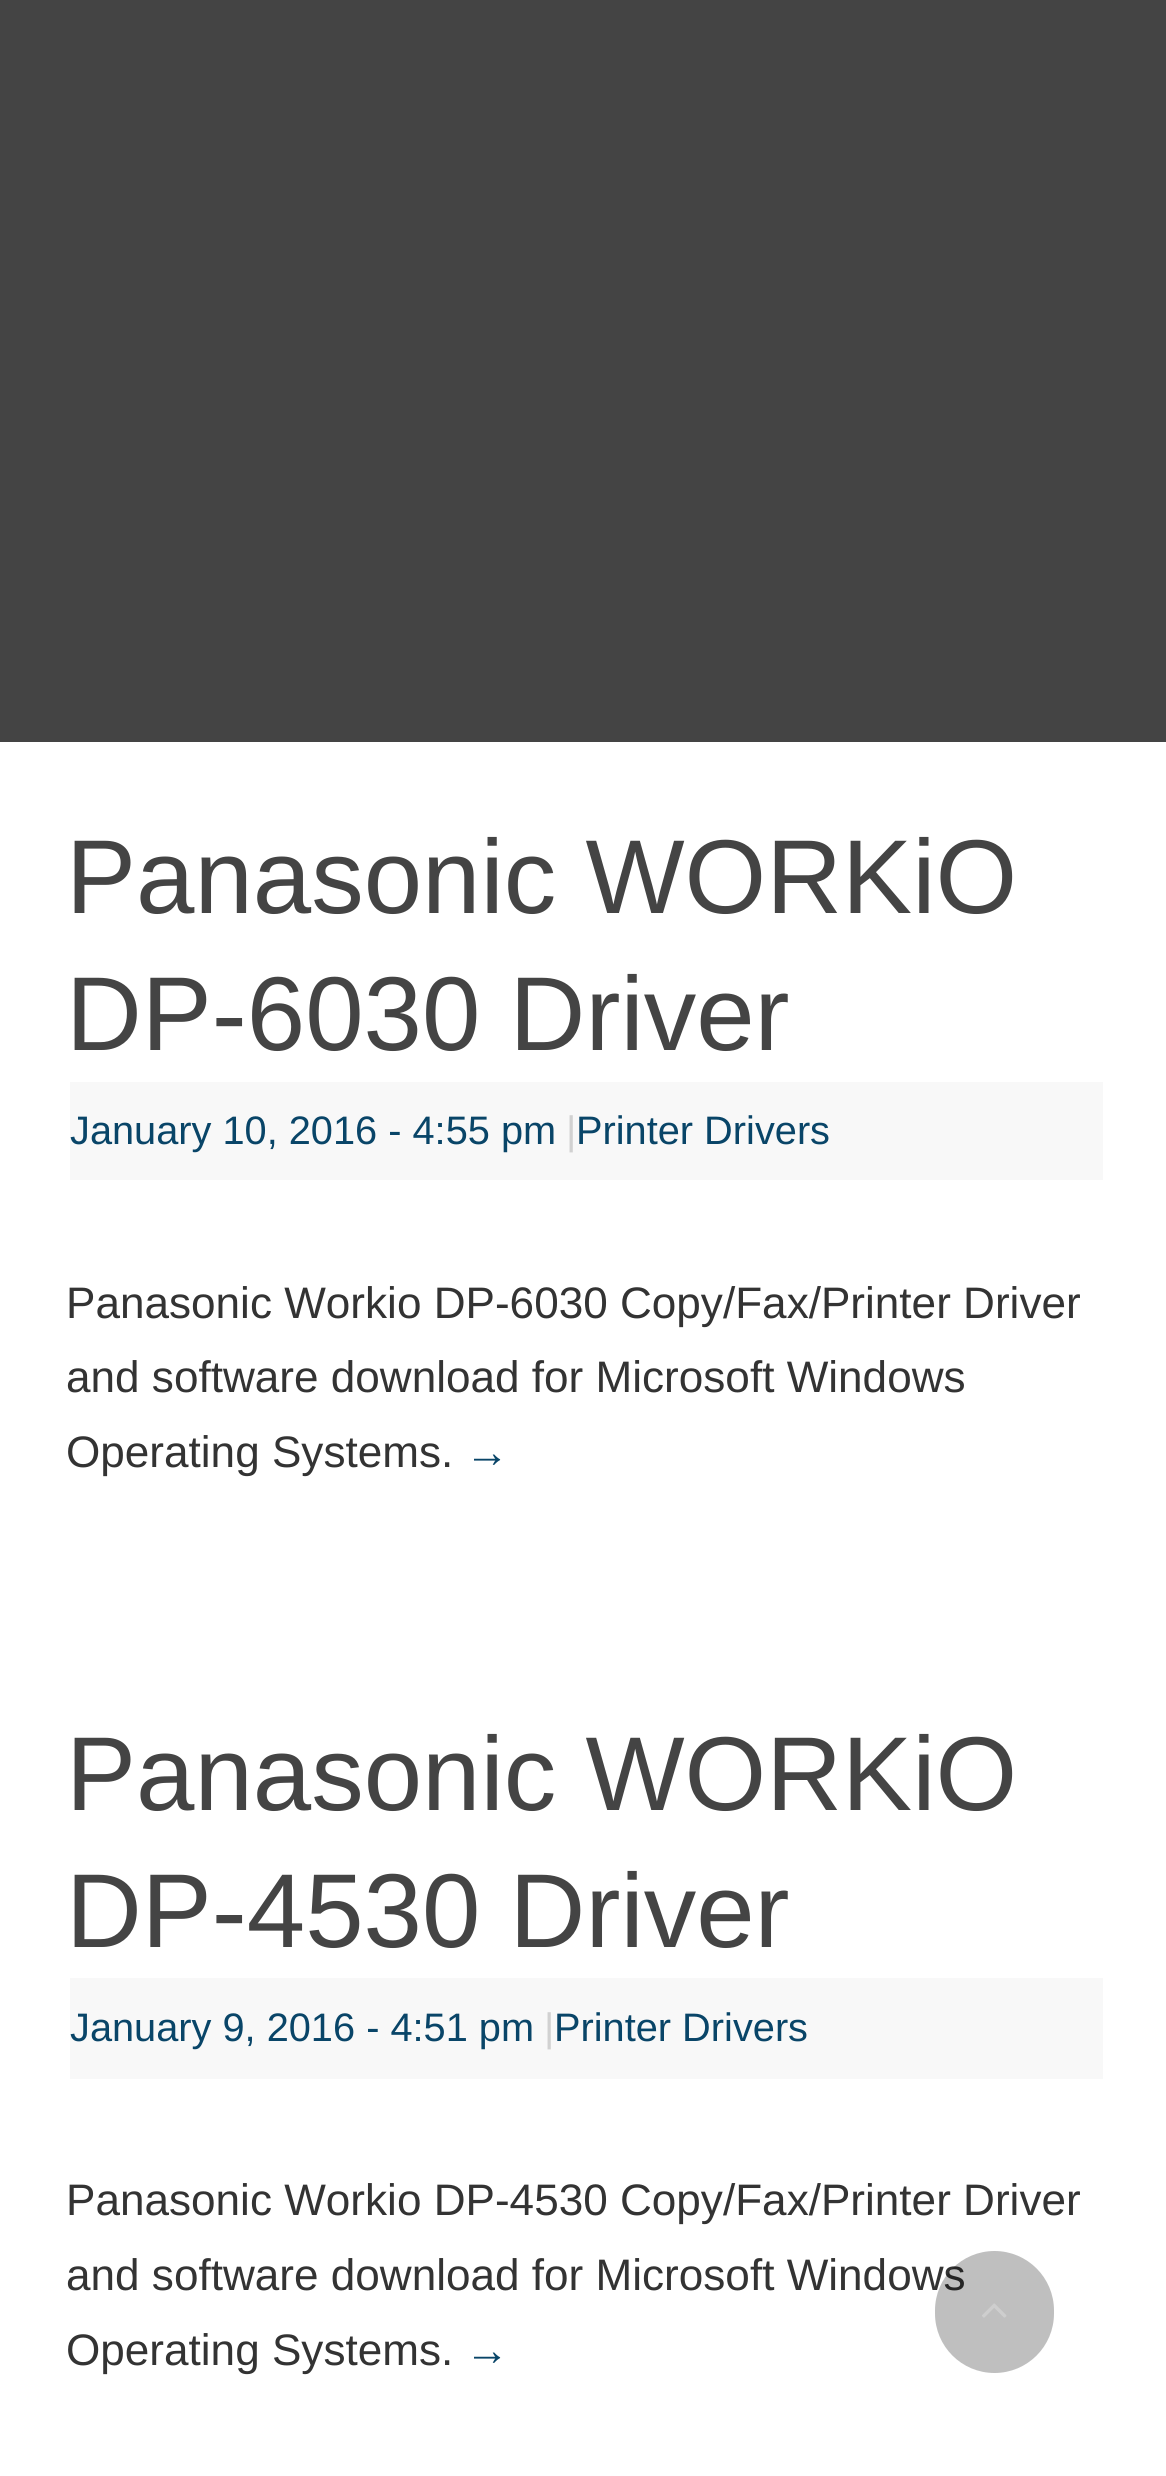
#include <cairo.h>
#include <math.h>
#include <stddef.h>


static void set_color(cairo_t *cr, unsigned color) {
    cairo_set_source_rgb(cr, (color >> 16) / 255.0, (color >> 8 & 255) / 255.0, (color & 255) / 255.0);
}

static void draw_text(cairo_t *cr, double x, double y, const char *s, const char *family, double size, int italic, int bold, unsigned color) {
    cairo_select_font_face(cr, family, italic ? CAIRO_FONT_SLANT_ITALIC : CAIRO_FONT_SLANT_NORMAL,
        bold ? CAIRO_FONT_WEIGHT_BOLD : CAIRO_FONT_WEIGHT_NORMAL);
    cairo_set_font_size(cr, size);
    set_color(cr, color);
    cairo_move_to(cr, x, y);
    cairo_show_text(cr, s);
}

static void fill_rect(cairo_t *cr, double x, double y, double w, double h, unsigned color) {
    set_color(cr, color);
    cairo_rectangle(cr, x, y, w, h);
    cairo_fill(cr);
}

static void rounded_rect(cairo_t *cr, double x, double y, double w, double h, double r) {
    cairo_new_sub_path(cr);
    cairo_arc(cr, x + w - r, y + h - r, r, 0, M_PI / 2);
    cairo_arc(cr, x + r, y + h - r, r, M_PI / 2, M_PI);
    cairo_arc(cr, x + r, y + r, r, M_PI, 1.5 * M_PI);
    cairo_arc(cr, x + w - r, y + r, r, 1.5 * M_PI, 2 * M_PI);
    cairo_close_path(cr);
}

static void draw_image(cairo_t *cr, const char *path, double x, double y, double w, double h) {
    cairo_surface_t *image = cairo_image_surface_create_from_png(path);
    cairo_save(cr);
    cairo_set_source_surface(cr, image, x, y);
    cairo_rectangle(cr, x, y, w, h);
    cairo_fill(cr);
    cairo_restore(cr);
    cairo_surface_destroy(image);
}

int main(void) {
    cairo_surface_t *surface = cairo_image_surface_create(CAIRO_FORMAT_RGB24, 1166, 2476);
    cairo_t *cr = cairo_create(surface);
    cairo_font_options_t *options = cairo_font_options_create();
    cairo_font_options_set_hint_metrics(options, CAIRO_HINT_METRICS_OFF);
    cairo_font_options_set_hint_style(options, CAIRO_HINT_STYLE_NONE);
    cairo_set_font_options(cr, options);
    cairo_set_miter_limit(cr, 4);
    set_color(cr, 0x444444);
    cairo_paint(cr);
    fill_rect(cr, 0, 742, 1166, 1734, 0xFFFFFF);
    draw_text(cr, 66, 913, "Panasonic WORKiO", "Liberation Sans", 105, 0, 0, 0x444444);
    draw_text(cr, 66, 1050, "DP-6030 Driver", "Liberation Sans", 105, 0, 0, 0x444444);
    fill_rect(cr, 70, 1082, 1033, 98, 0xF8F8F8);
    draw_text(cr, 70, 1144, "January 10, 2016 - 4:55 pm", "Liberation Sans", 39.75, 0, 0, 0x094568);
    draw_text(cr, 566, 1144, "|", "Liberation Sans", 39.75, 0, 0, 0xD1D1D1);
    draw_text(cr, 576, 1144, "Printer Drivers", "Liberation Sans", 39.75, 0, 0, 0x094568);
    draw_text(cr, 66, 1318, "Panasonic Workio DP-6030 Copy/Fax/Printer Driver", "Liberation Sans", 44.1, 0, 0, 0x333333);
    draw_text(cr, 66, 1392, "and software download for Microsoft Windows", "Liberation Sans", 44.1, 0, 0, 0x333333);
    draw_text(cr, 66, 1467, "Operating Systems.", "Liberation Sans", 44.1, 0, 0, 0x333333);
    draw_text(cr, 465, 1467, "→", "Liberation Sans", 44.1, 0, 1, 0x094568);
    draw_text(cr, 66, 1810, "Panasonic WORKiO", "Liberation Sans", 105, 0, 0, 0x444444);
    draw_text(cr, 66, 1947, "DP-4530 Driver", "Liberation Sans", 105, 0, 0, 0x444444);
    fill_rect(cr, 70, 1978, 1033, 101, 0xF8F8F8);
    draw_text(cr, 70, 2041, "January 9, 2016 - 4:51 pm", "Liberation Sans", 39.75, 0, 0, 0x094568);
    draw_text(cr, 544, 2041, "|", "Liberation Sans", 39.75, 0, 0, 0xD1D1D1);
    draw_text(cr, 554, 2041, "Printer Drivers", "Liberation Sans", 39.75, 0, 0, 0x094568);
    draw_text(cr, 66, 2215, "Panasonic Workio DP-4530 Copy/Fax/Printer Driver", "Liberation Sans", 44.1, 0, 0, 0x333333);
    draw_text(cr, 66, 2290, "and software download for Microsoft Windows", "Liberation Sans", 44.1, 0, 0, 0x333333);
    draw_text(cr, 66, 2365, "Operating Systems.", "Liberation Sans", 44.1, 0, 0, 0x333333);
    draw_text(cr, 465, 2365, "→", "Liberation Sans", 44.1, 0, 1, 0x094568);
    cairo_set_source_rgba(cr, 0, 0, 0, 0.25);
    rounded_rect(cr, 935, 2251, 119, 122, 59.5);
    cairo_fill(cr);
    draw_image(cr, "assets/img1.png", 982, 2303, 25, 15);
    cairo_surface_write_to_png(surface, "output.png");
    cairo_font_options_destroy(options);
    cairo_destroy(cr);
    cairo_surface_destroy(surface);
    return 0;
}
